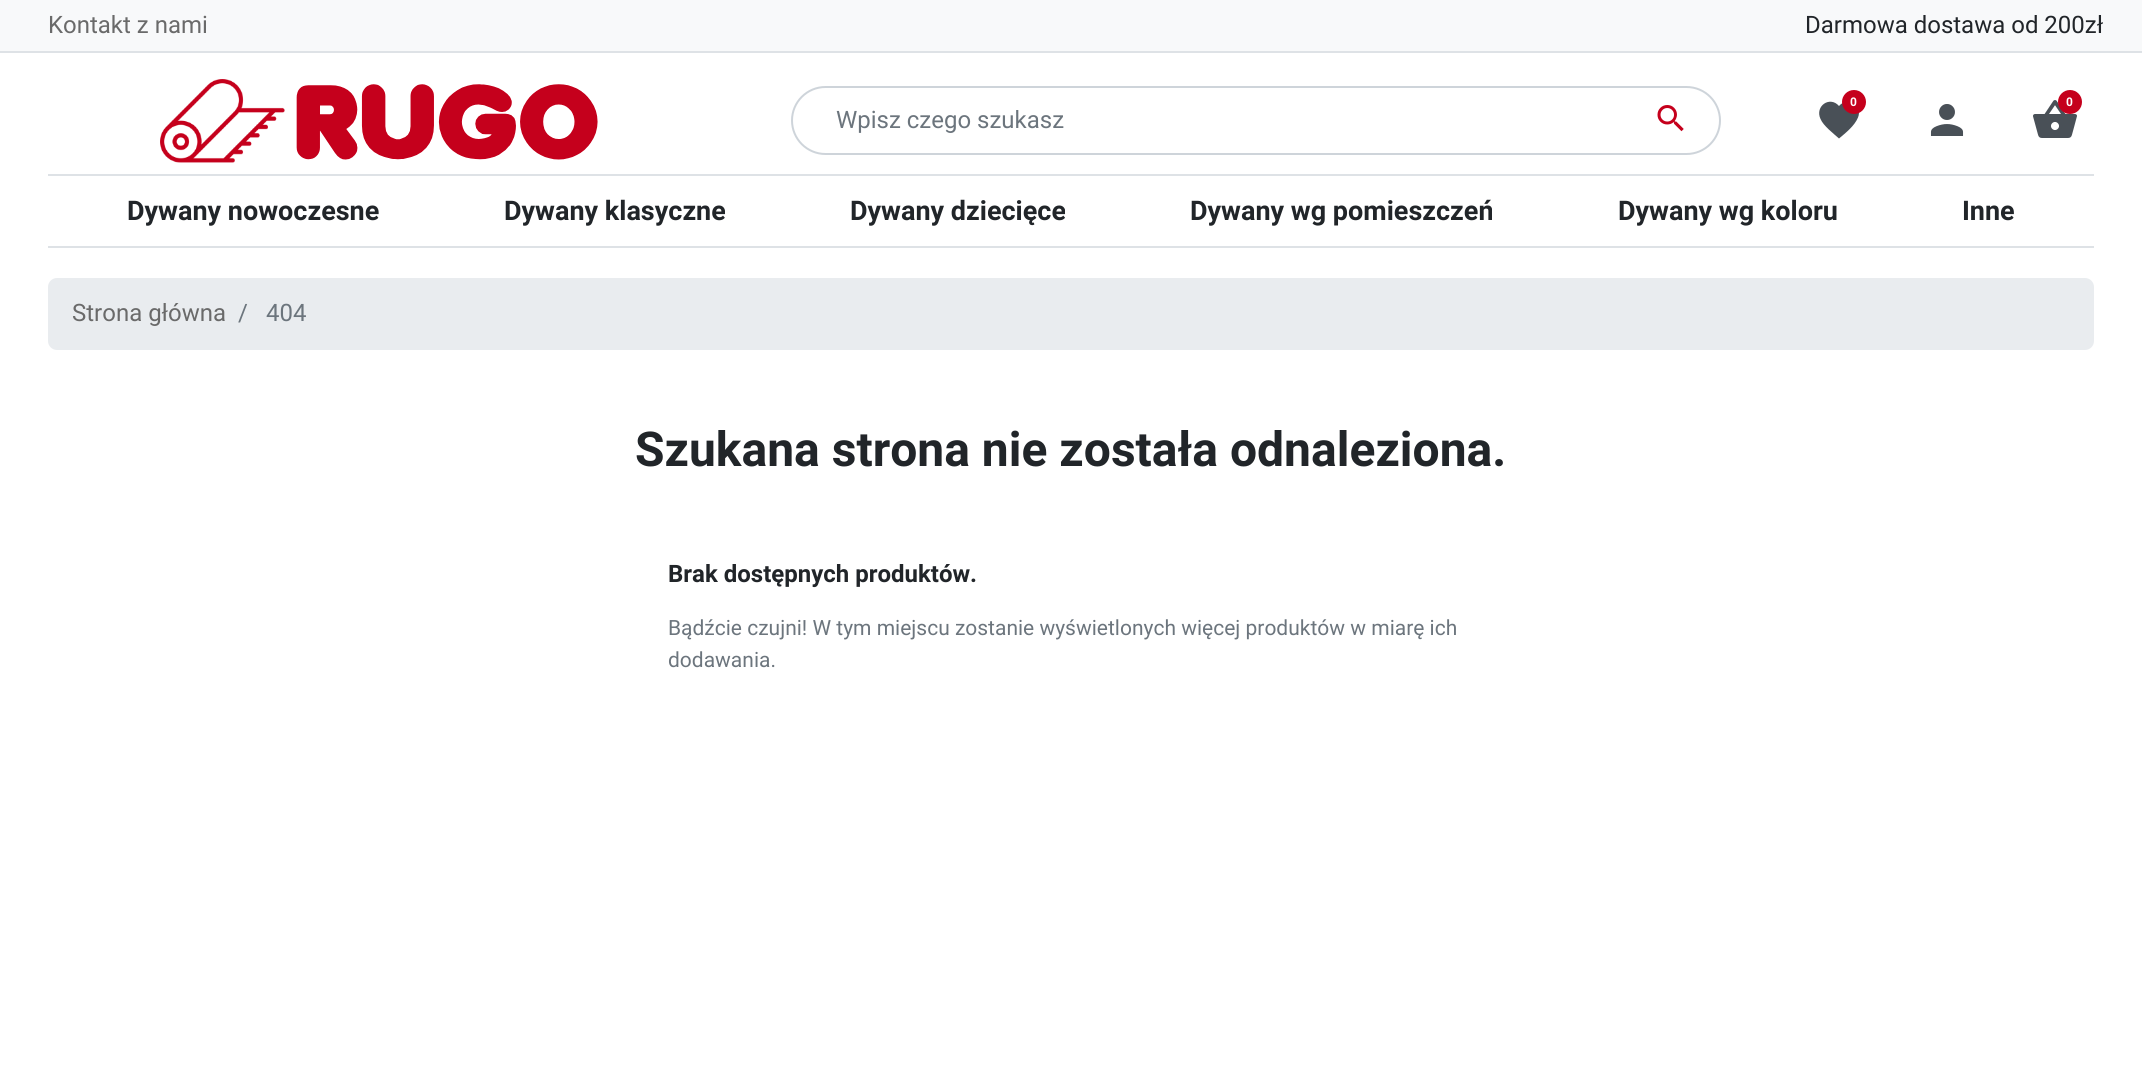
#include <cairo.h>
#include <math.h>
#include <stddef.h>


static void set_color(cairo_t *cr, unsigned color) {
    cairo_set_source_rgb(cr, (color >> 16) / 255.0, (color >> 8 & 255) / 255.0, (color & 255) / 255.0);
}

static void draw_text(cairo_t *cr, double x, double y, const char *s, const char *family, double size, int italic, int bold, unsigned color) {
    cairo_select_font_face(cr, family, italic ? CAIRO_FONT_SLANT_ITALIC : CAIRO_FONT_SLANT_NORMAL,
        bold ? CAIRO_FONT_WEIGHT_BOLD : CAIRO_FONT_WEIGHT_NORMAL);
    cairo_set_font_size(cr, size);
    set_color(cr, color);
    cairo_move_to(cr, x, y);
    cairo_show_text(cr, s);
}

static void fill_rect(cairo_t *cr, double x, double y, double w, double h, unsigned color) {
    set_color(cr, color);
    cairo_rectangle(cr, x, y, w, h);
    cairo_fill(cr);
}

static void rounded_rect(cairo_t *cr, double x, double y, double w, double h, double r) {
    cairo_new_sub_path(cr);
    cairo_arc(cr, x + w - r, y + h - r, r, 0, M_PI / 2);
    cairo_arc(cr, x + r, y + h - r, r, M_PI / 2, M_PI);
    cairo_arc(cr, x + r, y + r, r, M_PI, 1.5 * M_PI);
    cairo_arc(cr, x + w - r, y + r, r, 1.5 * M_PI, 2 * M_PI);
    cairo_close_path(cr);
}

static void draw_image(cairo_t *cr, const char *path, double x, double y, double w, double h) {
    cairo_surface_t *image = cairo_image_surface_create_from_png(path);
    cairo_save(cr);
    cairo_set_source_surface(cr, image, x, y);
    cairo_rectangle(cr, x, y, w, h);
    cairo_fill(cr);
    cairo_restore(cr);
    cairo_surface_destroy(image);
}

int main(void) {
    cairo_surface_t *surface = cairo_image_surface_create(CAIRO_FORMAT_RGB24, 2142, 1073);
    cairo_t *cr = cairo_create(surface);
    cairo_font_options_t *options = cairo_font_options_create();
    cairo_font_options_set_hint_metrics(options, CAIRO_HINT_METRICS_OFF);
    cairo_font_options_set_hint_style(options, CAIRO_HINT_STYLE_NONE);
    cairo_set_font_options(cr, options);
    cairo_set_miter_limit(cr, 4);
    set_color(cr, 0xFFFFFF);
    cairo_paint(cr);
    fill_rect(cr, 0, 0, 2142, 51, 0xF8F9FA);
    fill_rect(cr, 0, 51, 2142, 2, 0xDEE2E6);
    draw_text(cr, 48, 33, "Kontakt z nami", "Roboto", 24, 0, 0, 0x6A6A6A);
    draw_text(cr, 1805, 33, "Darmowa dostawa od 200zł", "Roboto", 24, 0, 0, 0x212529);
    draw_image(cr, "assets/img1.png", 160, 79, 438, 84);
    set_color(cr, 0x495057);
    cairo_new_path(cr);
    cairo_move_to(cr, 1839, 138.5);
    cairo_curve_to(cr, 1833.5, 133.5, 1823.5, 126, 1820.5, 119);
    cairo_curve_to(cr, 1814.5, 106, 1830, 95.5, 1839, 106);
    cairo_curve_to(cr, 1847.5, 96, 1863, 105.5, 1858, 117.5);
    cairo_curve_to(cr, 1854.5, 126, 1845.5, 133, 1839, 138.5);
    cairo_close_path(cr);
    cairo_fill(cr);
    set_color(cr, 0xC5001C);
    cairo_arc(cr, 1854, 102, 12, 0, 2 * M_PI);
    cairo_fill(cr);
    draw_text(cr, 1850, 106, "0", "Roboto", 12, 0, 1, 0xFFFFFF);
    draw_image(cr, "assets/img2.png", 2033, 100, 44, 38);
    set_color(cr, 0xC5001C);
    cairo_arc(cr, 2070, 102, 12, 0, 2 * M_PI);
    cairo_fill(cr);
    draw_text(cr, 2066, 106, "0", "Roboto", 12, 0, 1, 0xFFFFFF);
    rounded_rect(cr, 792, 87, 928, 67, 33.5);
    set_color(cr, 0xCED4DA);
    cairo_stroke(cr);
    draw_text(cr, 836, 128, "Wpisz czego szukasz", "Roboto", 24, 0, 0, 0x6C757D);
    draw_image(cr, "assets/img3.png", 1657, 105, 27, 27);
    draw_image(cr, "assets/img4.png", 1930, 104, 34, 32);
    fill_rect(cr, 48, 174, 2046, 2, 0xDEE2E6);
    fill_rect(cr, 48, 246, 2046, 2, 0xDEE2E6);
    draw_text(cr, 127, 220, "Dywany nowoczesne", "Roboto", 27, 0, 1, 0x212529);
    draw_text(cr, 504, 220, "Dywany klasyczne", "Roboto", 27, 0, 1, 0x212529);
    draw_text(cr, 850, 220, "Dywany dziecięce", "Roboto", 27, 0, 1, 0x212529);
    draw_text(cr, 1190, 220, "Dywany wg pomieszczeń", "Roboto", 27, 0, 1, 0x212529);
    draw_text(cr, 1618, 220, "Dywany wg koloru", "Roboto", 27, 0, 1, 0x212529);
    draw_text(cr, 1962, 220, "Inne", "Roboto", 27, 0, 1, 0x212529);
    set_color(cr, 0xE9ECEF);
    rounded_rect(cr, 48, 278, 2046, 72, 9);
    cairo_fill(cr);
    draw_text(cr, 72, 321, "Strona główna", "Roboto", 24, 0, 0, 0x6A6A6A);
    draw_text(cr, 238, 321, "/", "Roboto", 24, 0, 0, 0x6C757D);
    draw_text(cr, 266, 321, "404", "Roboto", 24, 0, 0, 0x6C757D);
    draw_text(cr, 635, 466, "Szukana strona nie została odnaleziona.", "Roboto", 48, 0, 1, 0x212529);
    draw_text(cr, 668, 582, "Brak dostępnych produktów.", "Roboto", 24, 0, 1, 0x212529);
    draw_text(cr, 668, 635, "Bądźcie czujni! W tym miejscu zostanie wyświetlonych więcej produktów w miarę ich", "Roboto", 21, 0, 0, 0x6C757D);
    draw_text(cr, 668, 667, "dodawania.", "Roboto", 21, 0, 0, 0x6C757D);
    cairo_surface_write_to_png(surface, "output.png");
    cairo_font_options_destroy(options);
    cairo_destroy(cr);
    cairo_surface_destroy(surface);
    return 0;
}
